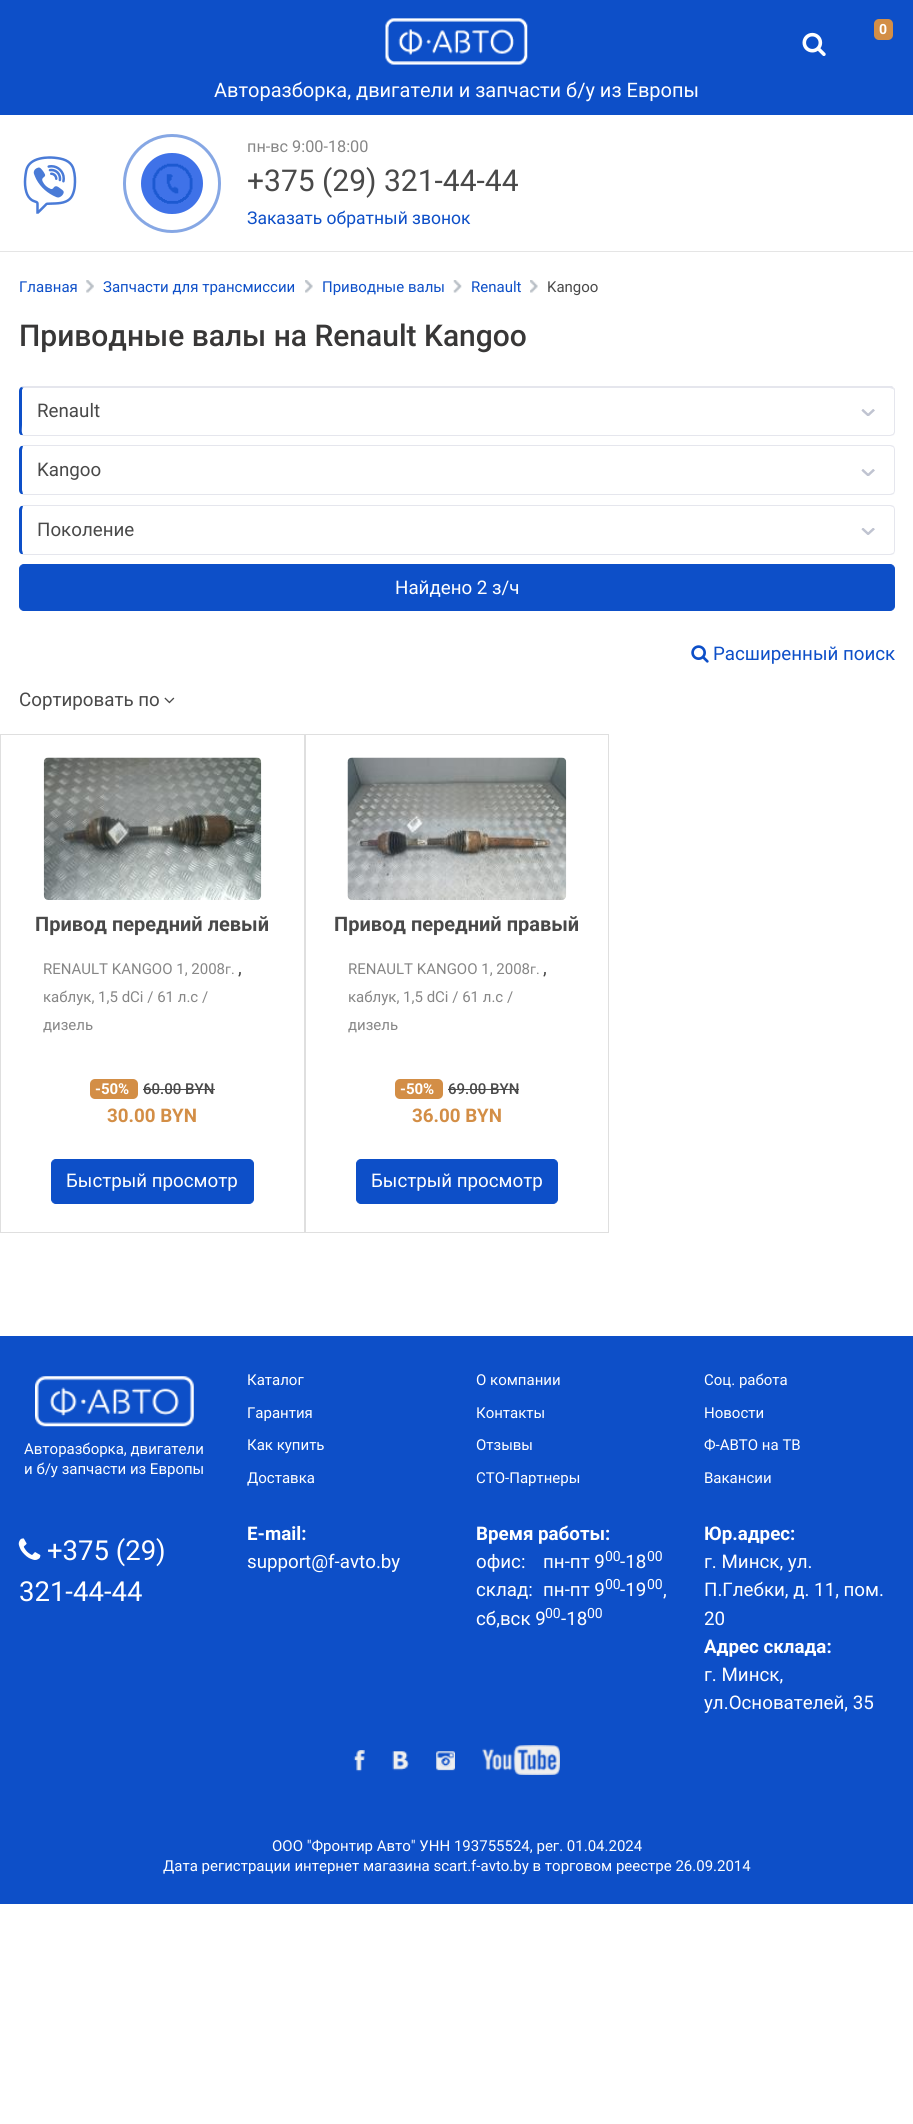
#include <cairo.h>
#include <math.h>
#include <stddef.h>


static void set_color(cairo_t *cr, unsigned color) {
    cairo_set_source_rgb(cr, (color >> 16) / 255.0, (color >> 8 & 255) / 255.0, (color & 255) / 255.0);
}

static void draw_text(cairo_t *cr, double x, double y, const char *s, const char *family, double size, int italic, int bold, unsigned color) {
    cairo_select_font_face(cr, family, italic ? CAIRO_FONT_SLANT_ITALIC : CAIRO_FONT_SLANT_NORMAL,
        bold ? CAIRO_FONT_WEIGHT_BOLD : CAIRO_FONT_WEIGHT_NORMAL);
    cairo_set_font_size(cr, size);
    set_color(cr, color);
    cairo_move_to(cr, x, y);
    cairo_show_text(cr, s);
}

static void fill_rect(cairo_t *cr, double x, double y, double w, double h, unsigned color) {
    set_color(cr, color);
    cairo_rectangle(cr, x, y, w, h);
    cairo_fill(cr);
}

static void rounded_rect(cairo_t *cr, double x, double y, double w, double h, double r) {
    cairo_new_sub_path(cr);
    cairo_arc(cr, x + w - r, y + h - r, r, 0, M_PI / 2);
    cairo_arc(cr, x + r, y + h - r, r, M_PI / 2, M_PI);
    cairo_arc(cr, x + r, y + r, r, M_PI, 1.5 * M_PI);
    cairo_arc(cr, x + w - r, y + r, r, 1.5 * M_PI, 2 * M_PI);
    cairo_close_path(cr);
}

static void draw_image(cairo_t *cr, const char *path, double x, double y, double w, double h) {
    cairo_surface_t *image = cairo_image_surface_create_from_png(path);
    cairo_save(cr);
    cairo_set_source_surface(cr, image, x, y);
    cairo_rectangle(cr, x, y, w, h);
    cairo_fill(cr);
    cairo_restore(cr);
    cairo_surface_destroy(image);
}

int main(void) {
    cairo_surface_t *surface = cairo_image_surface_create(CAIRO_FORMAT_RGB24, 913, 2124);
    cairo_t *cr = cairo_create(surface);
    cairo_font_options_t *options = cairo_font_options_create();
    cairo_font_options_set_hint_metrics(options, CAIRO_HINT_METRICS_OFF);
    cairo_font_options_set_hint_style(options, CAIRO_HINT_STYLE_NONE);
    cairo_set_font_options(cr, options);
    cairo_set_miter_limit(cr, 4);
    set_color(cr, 0xFFFFFF);
    cairo_paint(cr);
    fill_rect(cr, 0, 251, 913, 1, 0xE5E5E5);
    fill_rect(cr, 0, 0, 913, 115, 0x0D4FC8);
    draw_image(cr, "assets/img1.png", 385, 18, 143, 47);
    set_color(cr, 0xD38E46);
    rounded_rect(cr, 874, 19, 19, 21, 5);
    cairo_fill(cr);
    draw_text(cr, 879, 34, "0", "Roboto", 14, 0, 1, 0xFFFFFF);
    draw_image(cr, "assets/img2.png", 802, 32, 24, 24);
    draw_text(cr, 214, 97, "Авторазборка, двигатели и запчасти б/у из Европы", "Roboto", 20, 0, 0, 0xFFFFFF);
    draw_image(cr, "assets/img3.png", 23, 156, 54, 58);
    rounded_rect(cr, 124.5, 135.5, 95, 96, 47.5);
    set_color(cr, 0x86A7E4);
    cairo_set_line_width(cr, 3);
    cairo_stroke(cr);
    set_color(cr, 0x3F72E8);
    rounded_rect(cr, 141, 153, 62, 61, 30.5);
    cairo_fill(cr);
    draw_image(cr, "assets/img4.png", 152, 163, 41, 41);
    draw_text(cr, 247, 152, "пн-вс 9:00-18:00", "Roboto", 16.25, 0, 0, 0x868686);
    draw_text(cr, 247, 191, "+375 (29) 321-44-44", "Roboto", 30, 0, 0, 0x494949);
    draw_text(cr, 247, 224, "Заказать обратный звонок", "Roboto", 17.5, 0, 0, 0x0D4FC8);
    draw_text(cr, 19, 292, "Главная", "Roboto", 15, 0, 0, 0x0D4FC8);
    draw_image(cr, "assets/img5.png", 86, 280, 8, 13);
    draw_text(cr, 103, 292, "Запчасти для трансмиссии", "Roboto", 15, 0, 0, 0x0D4FC8);
    draw_image(cr, "assets/img6.png", 305, 280, 8, 13);
    draw_text(cr, 322, 292, "Приводные валы", "Roboto", 15, 0, 0, 0x0D4FC8);
    draw_image(cr, "assets/img7.png", 453, 280, 9, 13);
    draw_text(cr, 471, 292, "Renault", "Roboto", 15, 0, 0, 0x0D4FC8);
    draw_image(cr, "assets/img8.png", 530, 280, 8, 13);
    draw_text(cr, 547, 292, "Kangoo", "Roboto", 15, 0, 0, 0x494949);
    draw_text(cr, 19, 346, "Приводные валы на Renault Kangoo", "Roboto Medium", 30, 0, 0, 0x383737);
    set_color(cr, 0xE5E6ED);
    cairo_new_path(cr);
    cairo_move_to(cr, 21, 387);
    cairo_line_to(cr, 22, 386);
    cairo_line_to(cr, 892, 386);
    cairo_line_to(cr, 894, 388);
    cairo_line_to(cr, 893, 389);
    cairo_line_to(cr, 890, 388);
    cairo_line_to(cr, 24, 388);
    cairo_close_path(cr);
    cairo_fill(cr);
    cairo_new_path(cr);
    cairo_move_to(cr, 895, 432);
    cairo_line_to(cr, 895, 391);
    cairo_curve_to(cr, 895, 390, 895, 388, 894, 388);
    cairo_line_to(cr, 893, 389);
    cairo_line_to(cr, 894, 390);
    cairo_line_to(cr, 894, 432);
    cairo_line_to(cr, 893, 434);
    cairo_line_to(cr, 894, 435);
    cairo_curve_to(cr, 894, 434, 895, 433, 895, 432);
    cairo_close_path(cr);
    cairo_fill(cr);
    cairo_new_path(cr);
    cairo_move_to(cr, 894, 435);
    cairo_line_to(cr, 890, 436);
    cairo_line_to(cr, 23, 436);
    cairo_line_to(cr, 21, 435);
    cairo_line_to(cr, 23, 435);
    cairo_line_to(cr, 890, 435);
    cairo_line_to(cr, 893, 434);
    cairo_close_path(cr);
    cairo_fill(cr);
    set_color(cr, 0x0D4FC8);
    cairo_new_path(cr);
    cairo_move_to(cr, 23, 388);
    cairo_line_to(cr, 22, 390);
    cairo_line_to(cr, 22, 425);
    cairo_curve_to(cr, 22, 429, 21, 432, 23, 435);
    cairo_line_to(cr, 21, 435);
    cairo_curve_to(cr, 20, 435, 19, 433, 19, 432);
    cairo_line_to(cr, 19, 391);
    cairo_curve_to(cr, 19, 389, 20, 388, 21, 387);
    cairo_line_to(cr, 24, 388);
    cairo_close_path(cr);
    cairo_fill(cr);
    draw_text(cr, 37, 417, "Renault", "Roboto", 18.75, 0, 0, 0x494949);
    draw_image(cr, "assets/img9.png", 861, 409, 14, 7);
    set_color(cr, 0xE5E6ED);
    cairo_new_path(cr);
    cairo_move_to(cr, 23, 445);
    cairo_line_to(cr, 21, 446);
    cairo_line_to(cr, 23, 446);
    cairo_line_to(cr, 890, 446);
    cairo_line_to(cr, 893, 447);
    cairo_line_to(cr, 894, 446);
    cairo_curve_to(cr, 893, 446, 892, 445, 890, 445);
    cairo_close_path(cr);
    cairo_fill(cr);
    cairo_new_path(cr);
    cairo_move_to(cr, 895, 490);
    cairo_line_to(cr, 895, 450);
    cairo_curve_to(cr, 895, 448, 894, 447, 894, 446);
    cairo_line_to(cr, 893, 447);
    cairo_curve_to(cr, 894, 448, 894, 449, 894, 450);
    cairo_line_to(cr, 894, 490);
    cairo_curve_to(cr, 894, 491, 894, 492, 893, 493);
    cairo_line_to(cr, 894, 494);
    cairo_curve_to(cr, 894, 493, 895, 492, 895, 490);
    cairo_close_path(cr);
    cairo_fill(cr);
    cairo_new_path(cr);
    cairo_move_to(cr, 23, 495);
    cairo_line_to(cr, 890, 495);
    cairo_curve_to(cr, 892, 495, 893, 494, 894, 494);
    cairo_line_to(cr, 893, 493);
    cairo_line_to(cr, 890, 494);
    cairo_line_to(cr, 23, 494);
    cairo_line_to(cr, 21, 494);
    cairo_close_path(cr);
    cairo_fill(cr);
    set_color(cr, 0x0D4FC8);
    cairo_new_path(cr);
    cairo_move_to(cr, 21, 446);
    cairo_curve_to(cr, 20, 447, 19, 448, 19, 450);
    cairo_line_to(cr, 19, 490);
    cairo_curve_to(cr, 19, 492, 20, 493, 21, 494);
    cairo_line_to(cr, 23, 494);
    cairo_line_to(cr, 22, 490);
    cairo_line_to(cr, 22, 450);
    cairo_line_to(cr, 23, 446);
    cairo_close_path(cr);
    cairo_fill(cr);
    draw_text(cr, 37, 476, "Kangoo", "Roboto", 18.75, 0, 0, 0x494949);
    draw_image(cr, "assets/img9.png", 861, 469, 14, 7);
    set_color(cr, 0xE5E6ED);
    cairo_new_path(cr);
    cairo_move_to(cr, 23, 505);
    cairo_line_to(cr, 21, 506);
    cairo_line_to(cr, 23, 506);
    cairo_line_to(cr, 890, 506);
    cairo_line_to(cr, 893, 507);
    cairo_line_to(cr, 894, 506);
    cairo_curve_to(cr, 893, 506, 892, 505, 890, 505);
    cairo_close_path(cr);
    cairo_fill(cr);
    cairo_new_path(cr);
    cairo_move_to(cr, 895, 550);
    cairo_line_to(cr, 895, 510);
    cairo_curve_to(cr, 895, 508, 894, 507, 894, 506);
    cairo_line_to(cr, 893, 507);
    cairo_curve_to(cr, 894, 508, 894, 509, 894, 510);
    cairo_line_to(cr, 894, 550);
    cairo_curve_to(cr, 894, 551, 894, 552, 893, 553);
    cairo_line_to(cr, 894, 554);
    cairo_curve_to(cr, 894, 553, 895, 552, 895, 550);
    cairo_close_path(cr);
    cairo_fill(cr);
    cairo_new_path(cr);
    cairo_move_to(cr, 23, 555);
    cairo_line_to(cr, 890, 555);
    cairo_curve_to(cr, 892, 555, 893, 554, 894, 554);
    cairo_line_to(cr, 893, 553);
    cairo_line_to(cr, 890, 554);
    cairo_line_to(cr, 23, 554);
    cairo_line_to(cr, 21, 554);
    cairo_close_path(cr);
    cairo_fill(cr);
    set_color(cr, 0x0D4FC8);
    cairo_new_path(cr);
    cairo_move_to(cr, 21, 506);
    cairo_curve_to(cr, 20, 507, 19, 508, 19, 510);
    cairo_line_to(cr, 19, 550);
    cairo_curve_to(cr, 19, 552, 20, 553, 21, 554);
    cairo_line_to(cr, 23, 554);
    cairo_line_to(cr, 22, 550);
    cairo_line_to(cr, 22, 510);
    cairo_line_to(cr, 23, 506);
    cairo_close_path(cr);
    cairo_fill(cr);
    draw_text(cr, 37, 536, "Поколение", "Roboto", 18.75, 0, 0, 0x494949);
    draw_image(cr, "assets/img10.png", 861, 528, 14, 7);
    set_color(cr, 0x0D4FC8);
    rounded_rect(cr, 19.5, 564.5, 875, 46, 4.5);
    cairo_fill_preserve(cr);
    cairo_set_line_width(cr, 1);
    cairo_stroke(cr);
    draw_text(cr, 395, 594, "Найдено 2 з/ч", "Roboto", 18.75, 0, 0, 0xFFFFFF);
    draw_image(cr, "assets/img11.png", 691, 645, 18, 18);
    draw_text(cr, 713, 660, "Расширенный поиск", "Roboto", 18.75, 0, 0, 0x0D4FC8);
    draw_text(cr, 19, 706, "Сортировать по", "Roboto", 18.75, 0, 0, 0x494949);
    draw_image(cr, "assets/img12.png", 164, 697, 11, 7);
    cairo_rectangle(cr, 0.5, 734.5, 304, 498);
    set_color(cr, 0xDFDFDF);
    cairo_stroke(cr);
    draw_image(cr, "assets/img13.png", 43, 757, 219, 143);
    draw_text(cr, 35, 931, "Привод передний левый", "Roboto", 20, 0, 1, 0x494949);
    draw_text(cr, 43, 974, "RENAULT KANGOO 1, 2008", "Roboto", 15, 0, 0, 0x868686);
    draw_text(cr, 225, 974, "г.", "Roboto", 14, 0, 0, 0x868686);
    draw_text(cr, 238, 974, ",", "Roboto", 18.75, 0, 0, 0x494949);
    draw_text(cr, 43, 1002, "каблук, 1,5 dCi / 61 л.с /", "Roboto", 15, 0, 0, 0x868686);
    draw_text(cr, 43, 1030, "дизель", "Roboto", 15, 0, 0, 0x868686);
    set_color(cr, 0xD38E46);
    rounded_rect(cr, 90, 1079, 48, 20, 5);
    cairo_fill(cr);
    draw_text(cr, 95, 1094, "-50%", "Roboto", 15, 0, 1, 0xFFFFFF);
    draw_text(cr, 143, 1094, "60.00 BYN", "Roboto Medium", 15, 0, 0, 0x494949);
    fill_rect(cr, 143, 1089, 72, 1, 0x494949);
    draw_text(cr, 107, 1122, "30.00 BYN", "Roboto", 18.75, 0, 1, 0xD38E46);
    set_color(cr, 0x0D4FC8);
    rounded_rect(cr, 51.5, 1159.5, 202, 44, 4.5);
    cairo_fill_preserve(cr);
    cairo_stroke(cr);
    draw_text(cr, 66, 1187, "Быстрый просмотр", "Roboto", 18.75, 0, 0, 0xFFFFFF);
    cairo_rectangle(cr, 305.5, 734.5, 303, 498);
    set_color(cr, 0xDFDFDF);
    cairo_stroke(cr);
    draw_image(cr, "assets/img14.png", 347, 757, 220, 143);
    draw_text(cr, 334, 931, "Привод передний правый", "Roboto", 20, 0, 1, 0x494949);
    draw_text(cr, 348, 974, "RENAULT KANGOO 1, 2008", "Roboto", 15, 0, 0, 0x868686);
    draw_text(cr, 530, 974, "г.", "Roboto", 14, 0, 0, 0x868686);
    draw_text(cr, 543, 974, ",", "Roboto", 18.75, 0, 0, 0x494949);
    draw_text(cr, 348, 1002, "каблук, 1,5 dCi / 61 л.с /", "Roboto", 15, 0, 0, 0x868686);
    draw_text(cr, 348, 1030, "дизель", "Roboto", 15, 0, 0, 0x868686);
    set_color(cr, 0xD38E46);
    rounded_rect(cr, 395, 1079, 48, 20, 5);
    cairo_fill(cr);
    draw_text(cr, 400, 1094, "-50%", "Roboto", 15, 0, 1, 0xFFFFFF);
    draw_text(cr, 448, 1094, "69.00 BYN", "Roboto Medium", 15, 0, 0, 0x494949);
    fill_rect(cr, 448, 1089, 71, 1, 0x494949);
    draw_text(cr, 412, 1122, "36.00 BYN", "Roboto", 18.75, 0, 1, 0xD38E46);
    set_color(cr, 0x0D4FC8);
    rounded_rect(cr, 356.5, 1159.5, 201, 44, 4.5);
    cairo_fill_preserve(cr);
    cairo_stroke(cr);
    draw_text(cr, 371, 1187, "Быстрый просмотр", "Roboto", 18.75, 0, 0, 0xFFFFFF);
    fill_rect(cr, 0, 1336, 913, 568, 0x0D4FC8);
    draw_image(cr, "assets/img15.png", 35, 1376, 159, 51);
    draw_text(cr, 24, 1454, "Авторазборка, двигатели", "Roboto", 15, 0, 0, 0xFFFFFF);
    draw_text(cr, 24, 1474, "и б/у запчасти из Европы", "Roboto", 15, 0, 0, 0xFFFFFF);
    draw_text(cr, 247, 1385, "Каталог", "Roboto", 15, 0, 0, 0xFFFFFF);
    draw_text(cr, 247, 1418, "Гарантия", "Roboto", 15, 0, 0, 0xFFFFFF);
    draw_text(cr, 247, 1450, "Как купить", "Roboto", 15, 0, 0, 0xFFFFFF);
    draw_text(cr, 247, 1483, "Доставка", "Roboto", 15, 0, 0, 0xFFFFFF);
    draw_text(cr, 476, 1385, "О компании", "Roboto", 15, 0, 0, 0xFFFFFF);
    draw_text(cr, 476, 1418, "Контакты", "Roboto", 15, 0, 0, 0xFFFFFF);
    draw_text(cr, 476, 1450, "Отзывы", "Roboto", 15, 0, 0, 0xFFFFFF);
    draw_text(cr, 476, 1483, "СТО-Партнеры", "Roboto", 15, 0, 0, 0xFFFFFF);
    draw_text(cr, 704, 1385, "Соц. работа", "Roboto", 15, 0, 0, 0xFFFFFF);
    draw_text(cr, 704, 1418, "Новости", "Roboto", 15, 0, 0, 0xFFFFFF);
    draw_text(cr, 704, 1450, "Ф-АВТО на ТВ", "Roboto", 15, 0, 0, 0xFFFFFF);
    draw_text(cr, 704, 1483, "Вакансии", "Roboto", 15, 0, 0, 0xFFFFFF);
    draw_image(cr, "assets/img16.png", 18, 1538, 23, 22);
    draw_text(cr, 47, 1560, "+375 (29)", "Roboto", 27.5, 0, 0, 0xFFFFFF);
    draw_text(cr, 19, 1601, "321-44-44", "Roboto", 27.5, 0, 0, 0xFFFFFF);
    draw_text(cr, 247, 1540, "E-mail:", "Roboto", 18.75, 0, 1, 0xFFFFFF);
    draw_text(cr, 247, 1568, "support@f-avto.by", "Roboto", 18.75, 0, 0, 0xFFFFFF);
    draw_text(cr, 476, 1540, "Время работы:", "Roboto", 18.75, 0, 1, 0xFFFFFF);
    draw_text(cr, 476, 1568, "офис:", "Roboto", 18.75, 0, 0, 0xFFFFFF);
    draw_text(cr, 543, 1568, "пн-пт 9", "Roboto", 18.75, 0, 0, 0xFFFFFF);
    draw_text(cr, 605, 1561, "00", "Roboto", 14, 0, 0, 0xFFFFFF);
    draw_text(cr, 620, 1568, "-18", "Roboto", 18.75, 0, 0, 0xFFFFFF);
    draw_text(cr, 647, 1561, "00", "Roboto", 14, 0, 0, 0xFFFFFF);
    draw_text(cr, 476, 1596, "склад:", "Roboto", 18.75, 0, 0, 0xFFFFFF);
    draw_text(cr, 543, 1596, "пн-пт 9", "Roboto", 18.75, 0, 0, 0xFFFFFF);
    draw_text(cr, 605, 1589, "00", "Roboto", 14, 0, 0, 0xFFFFFF);
    draw_text(cr, 620, 1596, "-19", "Roboto", 18.75, 0, 0, 0xFFFFFF);
    draw_text(cr, 647, 1589, "00", "Roboto", 14, 0, 0, 0xFFFFFF);
    draw_text(cr, 663, 1596, ",", "Roboto", 18.75, 0, 0, 0xFFFFFF);
    draw_text(cr, 476, 1625, "сб,вск 9", "Roboto", 18.75, 0, 0, 0xFFFFFF);
    draw_text(cr, 545, 1618, "00", "Roboto", 14, 0, 0, 0xFFFFFF);
    draw_text(cr, 561, 1625, "-18", "Roboto", 18.75, 0, 0, 0xFFFFFF);
    draw_text(cr, 587, 1618, "00", "Roboto", 14, 0, 0, 0xFFFFFF);
    draw_text(cr, 704, 1540, "Юр.адрес:", "Roboto", 18.75, 0, 1, 0xFFFFFF);
    draw_text(cr, 704, 1568, "г. Минск, ул.", "Roboto", 18.75, 0, 0, 0xFFFFFF);
    draw_text(cr, 704, 1596, "П.Глебки, д. 11, пом.", "Roboto", 18.75, 0, 0, 0xFFFFFF);
    draw_text(cr, 704, 1625, "20", "Roboto", 18.75, 0, 0, 0xFFFFFF);
    draw_text(cr, 704, 1653, "Адрес склада:", "Roboto", 18.75, 0, 1, 0xFFFFFF);
    draw_text(cr, 704, 1681, "г. Минск,", "Roboto", 18.75, 0, 0, 0xFFFFFF);
    draw_text(cr, 704, 1709, "ул.Основателей, 35", "Roboto", 18.75, 0, 0, 0xFFFFFF);
    draw_image(cr, "assets/img17.png", 353, 1750, 12, 22);
    draw_image(cr, "assets/img18.png", 392, 1751, 17, 20);
    draw_image(cr, "assets/img19.png", 436, 1751, 19, 20);
    draw_image(cr, "assets/img20.png", 482, 1745, 78, 30);
    draw_text(cr, 272, 1851, "ООО \"Фронтир Авто\" УНН 193755524, рег. 01.04.2024", "Roboto", 15, 0, 0, 0xFFFFFF);
    draw_text(cr, 163, 1871, "Дата регистрации интернет магазина scart.f-avto.by в торговом реестре 26.09.2014", "Roboto", 15, 0, 0, 0xFFFFFF);
    cairo_surface_write_to_png(surface, "output.png");
    cairo_font_options_destroy(options);
    cairo_destroy(cr);
    cairo_surface_destroy(surface);
    return 0;
}
